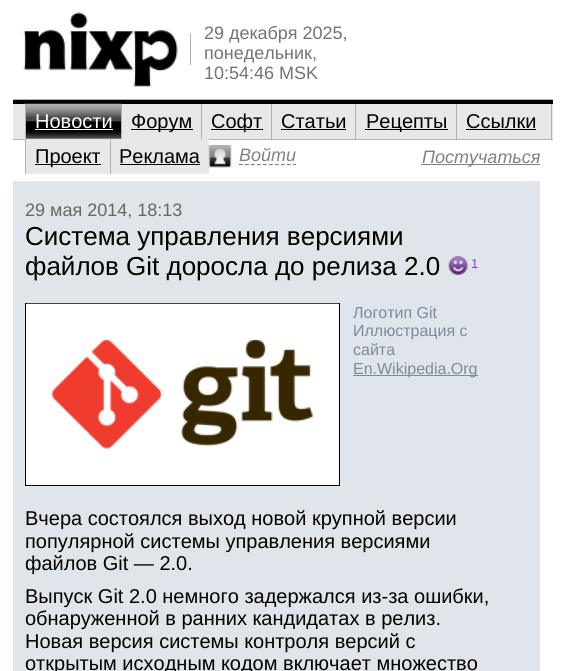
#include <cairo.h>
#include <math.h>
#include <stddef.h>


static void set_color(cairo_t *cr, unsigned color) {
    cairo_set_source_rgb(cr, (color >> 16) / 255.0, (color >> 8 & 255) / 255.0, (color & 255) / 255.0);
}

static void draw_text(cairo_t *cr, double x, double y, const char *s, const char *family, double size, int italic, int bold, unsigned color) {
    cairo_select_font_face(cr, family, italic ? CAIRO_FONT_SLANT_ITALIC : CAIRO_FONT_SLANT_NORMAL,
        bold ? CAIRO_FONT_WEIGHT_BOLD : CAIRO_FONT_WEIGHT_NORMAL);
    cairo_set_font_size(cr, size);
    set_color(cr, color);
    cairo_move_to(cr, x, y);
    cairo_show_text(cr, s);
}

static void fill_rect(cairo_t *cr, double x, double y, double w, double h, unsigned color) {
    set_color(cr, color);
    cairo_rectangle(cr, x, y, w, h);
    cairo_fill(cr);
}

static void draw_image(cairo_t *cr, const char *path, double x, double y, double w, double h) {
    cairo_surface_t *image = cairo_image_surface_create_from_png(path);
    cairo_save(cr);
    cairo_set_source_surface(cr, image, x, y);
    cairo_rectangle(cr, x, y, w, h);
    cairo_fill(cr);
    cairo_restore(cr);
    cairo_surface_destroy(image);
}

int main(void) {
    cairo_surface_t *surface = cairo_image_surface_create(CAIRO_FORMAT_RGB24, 564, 671);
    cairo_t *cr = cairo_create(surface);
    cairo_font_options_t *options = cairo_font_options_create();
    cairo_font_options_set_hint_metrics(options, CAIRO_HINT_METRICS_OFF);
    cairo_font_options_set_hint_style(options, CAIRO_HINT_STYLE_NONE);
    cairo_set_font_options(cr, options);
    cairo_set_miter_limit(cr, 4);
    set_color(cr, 0xFFFFFF);
    cairo_paint(cr);
    fill_rect(cr, 13, 99, 540, 1, 0xB2B2B2);
    draw_image(cr, "assets/img1.png", 23, 12, 155, 75);
    fill_rect(cr, 190, 33, 1, 32, 0xB2B2B2);
    draw_text(cr, 204, 39, "29 декабря 2025,", "Liberation Sans", 18, 0, 0, 0x737373);
    draw_text(cr, 204, 59, "понедельник,", "Liberation Sans", 18, 0, 0, 0x737373);
    draw_text(cr, 204, 79, "10:54:46 MSK", "Liberation Sans", 18, 0, 0, 0x737373);
    fill_rect(cr, 13, 104, 540, 35, 0xE8E8E8);
    fill_rect(cr, 13, 100, 540, 4, 0x000000);
    fill_rect(cr, 13, 139, 540, 1, 0xB2B2B2);
    fill_rect(cr, 551, 104, 1, 35, 0xB2B2B2);
    draw_image(cr, "assets/img2.png", 25, 103, 97, 36);
    fill_rect(cr, 25, 104, 1, 70, 0xB2B2B2);
    draw_text(cr, 35, 128, "Новости", "Liberation Sans", 20, 0, 0, 0xFFFFFF);
    fill_rect(cr, 35, 129, 78, 1, 0xFFFFFF);
    fill_rect(cr, 121, 104, 1, 35, 0xB2B2B2);
    fill_rect(cr, 131, 129, 62, 1, 0x000000);
    draw_text(cr, 131, 128, "Форум", "Liberation Sans", 20, 0, 0, 0x000000);
    fill_rect(cr, 201, 104, 1, 35, 0xB2B2B2);
    fill_rect(cr, 211, 129, 52, 1, 0x000000);
    draw_text(cr, 211, 128, "Софт", "Liberation Sans", 20, 0, 0, 0x000000);
    fill_rect(cr, 271, 104, 1, 35, 0xB2B2B2);
    draw_text(cr, 281, 128, "Статьи", "Liberation Sans", 20, 0, 0, 0x000000);
    fill_rect(cr, 281, 129, 65, 1, 0x000000);
    fill_rect(cr, 355, 104, 1, 35, 0xB2B2B2);
    fill_rect(cr, 365, 129, 83, 1, 0x000000);
    draw_text(cr, 366, 128, "Рецепты", "Liberation Sans", 20, 0, 0, 0x000000);
    fill_rect(cr, 456, 104, 1, 35, 0xB2B2B2);
    draw_text(cr, 466, 128, "Ссылки", "Liberation Sans", 20, 0, 0, 0x000000);
    fill_rect(cr, 466, 129, 70, 1, 0x000000);
    fill_rect(cr, 26, 139, 84, 35, 0xE8E8E8);
    fill_rect(cr, 35, 164, 66, 1, 0x000000);
    draw_text(cr, 35, 163, "Проект", "Liberation Sans", 20, 0, 0, 0x000000);
    fill_rect(cr, 111, 139, 98, 35, 0xE8E8E8);
    fill_rect(cr, 110, 139, 1, 35, 0xB2B2B2);
    draw_text(cr, 119, 163, "Реклама", "Liberation Sans", 20, 0, 0, 0x000000);
    fill_rect(cr, 120, 164, 80, 1, 0x000000);
    draw_image(cr, "assets/img3.png", 208, 145, 24, 23);
    draw_text(cr, 239, 161, "Войти", "Liberation Sans", 18, 1, 0, 0x818181);
    cairo_new_path(cr);
    cairo_move_to(cr, 239, 164.5);
    cairo_line_to(cr, 296, 164.5);
    cairo_set_line_width(cr, 1.2);
    cairo_set_dash(cr, (double[]){3.75, 2.23}, 2, 0);
    cairo_stroke(cr);
    fill_rect(cr, 421, 164, 119, 1, 0x818181);
    draw_text(cr, 422, 163, "Постучаться", "Liberation Sans", 18, 1, 0, 0x818181);
    fill_rect(cr, 13, 181, 527, 490, 0xE0E5EB);
    draw_text(cr, 25, 216, "29 мая 2014, 18:13", "Liberation Sans", 18, 0, 0, 0x666666);
    draw_text(cr, 25, 245, "Система управления версиями", "Liberation Sans", 26, 0, 0, 0x000000);
    draw_text(cr, 25, 275, "файлов Git доросла до релиза 2.0", "Liberation Sans", 26, 0, 0, 0x000000);
    draw_image(cr, "assets/img4.png", 448, 256, 20, 19);
    draw_text(cr, 471, 268, "1", "Liberation Sans", 13, 0, 0, 0x903FC2);
    cairo_rectangle(cr, 25.5, 303.5, 314, 182);
    set_color(cr, 0x000000);
    cairo_set_line_width(cr, 1);
    cairo_set_dash(cr, NULL, 0, 0);
    cairo_stroke(cr);
    draw_image(cr, "assets/img5.png", 26, 303, 313, 182);
    draw_text(cr, 353, 318, "Логотип Git", "Liberation Sans", 16, 0, 0, 0x7B8B9A);
    draw_text(cr, 353, 336, "Иллюстрация с", "Liberation Sans", 16, 0, 0, 0x7B8B9A);
    draw_text(cr, 353, 355, "сайта", "Liberation Sans", 16, 0, 0, 0x7B8B9A);
    fill_rect(cr, 353, 375, 125, 1, 0x7B8B9A);
    draw_text(cr, 353, 374, "En.Wikipedia.Org", "Liberation Sans", 16, 0, 0, 0x7B8B9A);
    draw_text(cr, 25, 525, "Вчера состоялся выход новой крупной версии", "Liberation Sans", 20, 0, 0, 0x000000);
    draw_text(cr, 25, 548, "популярной системы управления версиями", "Liberation Sans", 20, 0, 0, 0x000000);
    draw_text(cr, 25, 570, "файлов Git — 2.0.", "Liberation Sans", 20, 0, 0, 0x000000);
    draw_text(cr, 25, 603, "Выпуск Git 2.0 немного задержался из-за ошибки,", "Liberation Sans", 20, 0, 0, 0x000000);
    draw_text(cr, 25, 625, "обнаруженной в ранних кандидатах в релиз.", "Liberation Sans", 20, 0, 0, 0x000000);
    draw_text(cr, 25, 648, "Новая версия системы контроля версий с", "Liberation Sans", 20, 0, 0, 0x000000);
    draw_text(cr, 25, 670, "открытым исходным кодом включает множество", "Liberation Sans", 20, 0, 0, 0x000000);
    cairo_surface_write_to_png(surface, "output.png");
    cairo_font_options_destroy(options);
    cairo_destroy(cr);
    cairo_surface_destroy(surface);
    return 0;
}
